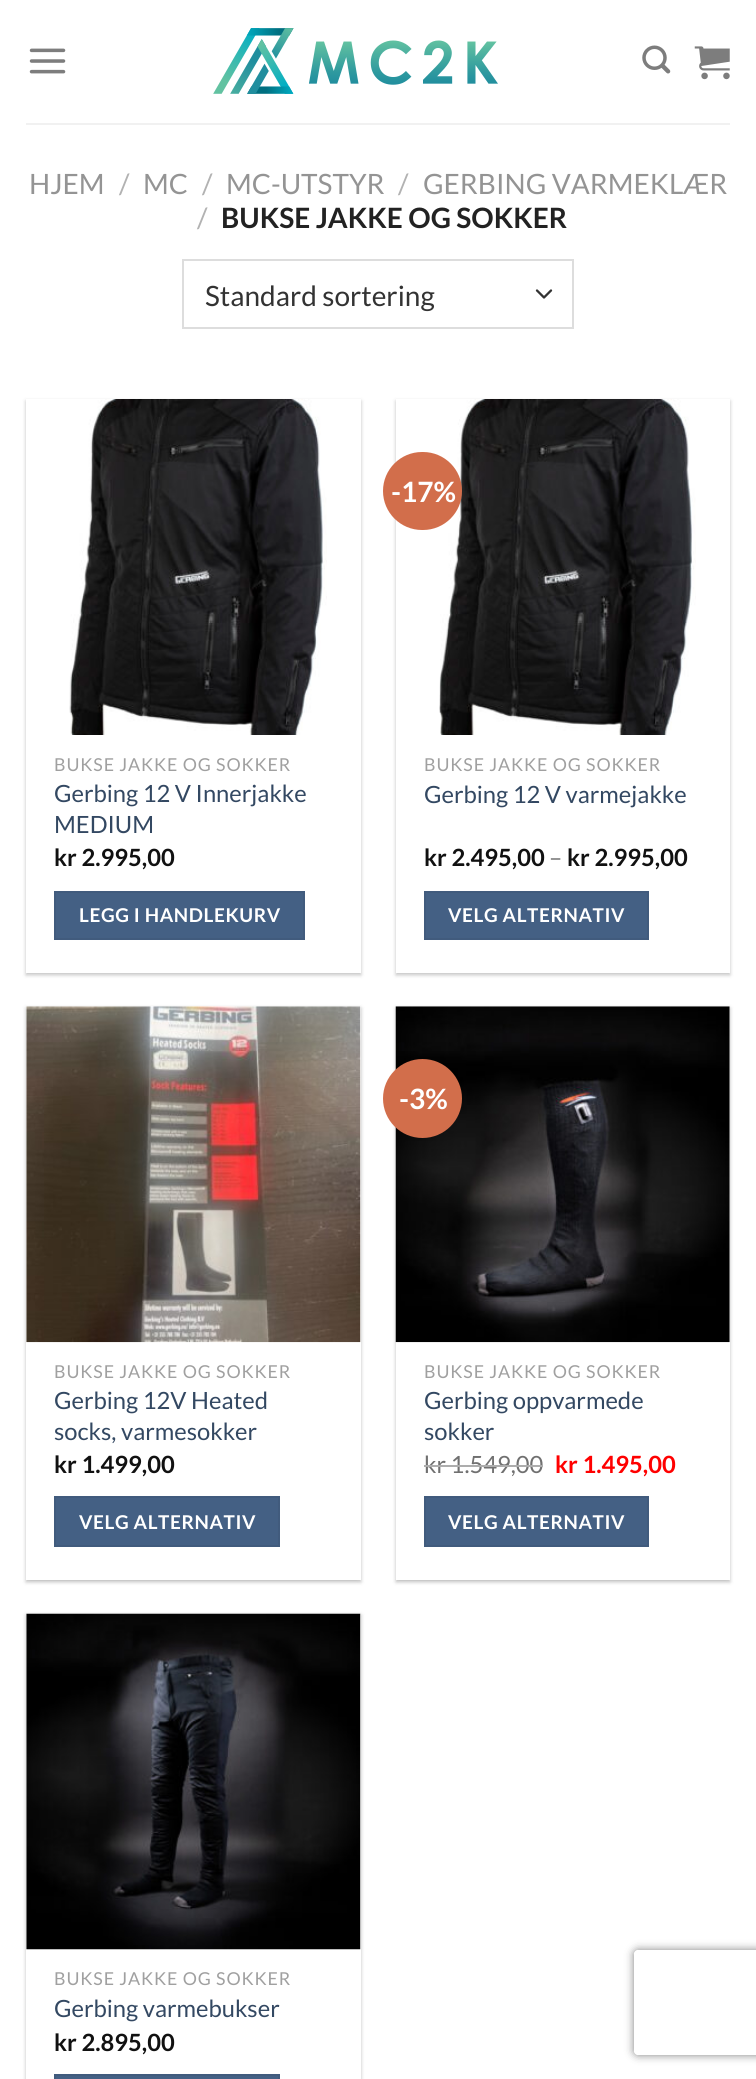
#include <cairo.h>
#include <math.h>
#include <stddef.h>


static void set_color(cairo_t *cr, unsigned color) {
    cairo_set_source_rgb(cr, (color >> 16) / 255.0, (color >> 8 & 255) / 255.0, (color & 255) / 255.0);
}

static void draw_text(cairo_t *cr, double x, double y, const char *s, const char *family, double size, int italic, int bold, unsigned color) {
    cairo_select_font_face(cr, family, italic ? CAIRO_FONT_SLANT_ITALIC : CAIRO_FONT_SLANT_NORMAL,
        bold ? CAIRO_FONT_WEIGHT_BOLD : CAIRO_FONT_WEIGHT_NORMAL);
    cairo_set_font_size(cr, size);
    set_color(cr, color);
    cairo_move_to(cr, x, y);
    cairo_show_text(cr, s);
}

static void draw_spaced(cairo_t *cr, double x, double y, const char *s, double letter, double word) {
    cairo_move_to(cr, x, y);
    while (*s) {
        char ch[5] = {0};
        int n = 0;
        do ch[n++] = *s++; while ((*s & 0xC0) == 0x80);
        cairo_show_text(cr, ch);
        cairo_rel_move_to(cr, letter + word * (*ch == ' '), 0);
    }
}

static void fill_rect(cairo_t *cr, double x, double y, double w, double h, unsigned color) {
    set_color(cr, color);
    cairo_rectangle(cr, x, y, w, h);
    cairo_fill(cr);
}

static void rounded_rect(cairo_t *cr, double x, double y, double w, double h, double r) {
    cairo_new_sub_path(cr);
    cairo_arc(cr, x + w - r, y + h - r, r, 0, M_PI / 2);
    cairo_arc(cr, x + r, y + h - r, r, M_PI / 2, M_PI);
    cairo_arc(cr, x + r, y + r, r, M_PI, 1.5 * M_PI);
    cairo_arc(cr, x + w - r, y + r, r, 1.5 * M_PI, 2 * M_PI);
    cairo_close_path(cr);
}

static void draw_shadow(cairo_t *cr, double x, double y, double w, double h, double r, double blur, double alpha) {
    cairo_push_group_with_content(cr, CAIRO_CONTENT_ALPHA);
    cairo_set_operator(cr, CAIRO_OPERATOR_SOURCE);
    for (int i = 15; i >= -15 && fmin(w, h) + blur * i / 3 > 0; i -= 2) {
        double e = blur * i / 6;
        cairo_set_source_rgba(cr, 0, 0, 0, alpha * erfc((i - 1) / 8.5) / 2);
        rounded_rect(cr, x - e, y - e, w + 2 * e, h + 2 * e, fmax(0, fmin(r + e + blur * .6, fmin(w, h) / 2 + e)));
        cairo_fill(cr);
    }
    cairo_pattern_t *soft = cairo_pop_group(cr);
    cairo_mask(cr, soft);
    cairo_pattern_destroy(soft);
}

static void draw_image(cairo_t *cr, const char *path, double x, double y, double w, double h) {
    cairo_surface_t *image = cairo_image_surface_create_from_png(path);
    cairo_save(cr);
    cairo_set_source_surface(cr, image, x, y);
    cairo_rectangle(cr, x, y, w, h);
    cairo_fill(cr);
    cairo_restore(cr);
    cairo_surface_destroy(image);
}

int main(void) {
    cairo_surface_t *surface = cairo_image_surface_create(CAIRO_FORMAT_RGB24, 756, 2079);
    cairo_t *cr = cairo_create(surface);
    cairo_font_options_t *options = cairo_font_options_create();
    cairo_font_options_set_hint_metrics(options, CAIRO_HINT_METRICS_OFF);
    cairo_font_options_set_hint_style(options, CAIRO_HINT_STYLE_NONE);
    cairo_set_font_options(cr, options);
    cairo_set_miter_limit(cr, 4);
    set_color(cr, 0xFFFFFF);
    cairo_paint(cr);
    draw_image(cr, "assets/img1.png", 29, 48, 37, 26);
    draw_image(cr, "assets/img2.png", 213, 28, 285, 66);
    draw_image(cr, "assets/img3.png", 642, 45, 29, 29);
    draw_image(cr, "assets/img4.png", 694, 46, 36, 34);
    fill_rect(cr, 26, 123, 704, 2, 0xF1F1F1);
    draw_text(cr, 29, 194, "HJEM", "Lato", 28, 0, 0, 0x949494);
    draw_text(cr, 119, 194, "/", "Lato", 28, 0, 0, 0xB2B2B2);
    draw_text(cr, 143, 194, "MC", "Lato", 28, 0, 0, 0x949494);
    draw_text(cr, 202, 194, "/", "Lato", 28, 0, 0, 0xB2B2B2);
    draw_text(cr, 226, 194, "MC-UTSTYR", "Lato", 28, 0, 0, 0x949494);
    draw_text(cr, 398, 194, "/", "Lato", 28, 0, 0, 0xB2B2B2);
    draw_text(cr, 423, 194, "GERBING VARMEKLÆR", "Lato", 28, 0, 0, 0x949494);
    draw_text(cr, 197, 228, "/", "Lato", 28, 0, 0, 0xB2B2B2);
    draw_text(cr, 221, 228, "BUKSE JAKKE OG SOKKER", "Lato", 28, 0, 1, 0x222222);
    cairo_new_path(cr);
    cairo_move_to(cr, 537, 290.5);
    cairo_line_to(cr, 544, 297.5);
    cairo_line_to(cr, 551, 290.5);
    set_color(cr, 0x333333);
    cairo_set_line_width(cr, 2.3);
    cairo_set_line_cap(cr, CAIRO_LINE_CAP_ROUND);
    cairo_set_line_join(cr, CAIRO_LINE_JOIN_ROUND);
    cairo_stroke(cr);
    cairo_rectangle(cr, 183, 260, 390, 68);
    set_color(cr, 0xDDDDDD);
    cairo_set_line_width(cr, 2);
    cairo_set_line_cap(cr, CAIRO_LINE_CAP_BUTT);
    cairo_set_line_join(cr, CAIRO_LINE_JOIN_MITER);
    cairo_stroke(cr);
    draw_text(cr, 205, 306, "Standard sortering", "Lato", 28, 0, 0, 0x333333);
    set_color(cr, 0x000000);
    draw_shadow(cr, 26, 401, 335, 574, 0, 2, 0.24);
    fill_rect(cr, 26, 399, 335, 574, 0xFFFFFF);
    draw_image(cr, "assets/img5.png", 69, 399, 258, 336);
    cairo_set_font_size(cr, 17.8);
    set_color(cr, 0xA0A0A0);
    draw_spaced(cr, 54, 771, "BUKSE JAKKE OG SOKKER", 0.9, 0);
    draw_text(cr, 54, 802, "Gerbing 12 V Innerjakke", "Lato", 23.75, 0, 0, 0x334862);
    draw_text(cr, 54, 833, "MEDIUM", "Lato", 23.75, 0, 0, 0x334862);
    draw_text(cr, 54, 866, "kr 2.995,00", "Lato", 23.75, 0, 1, 0x111111);
    set_color(cr, 0x446084);
    cairo_rectangle(cr, 55, 892, 249, 47);
    cairo_fill_preserve(cr);
    set_color(cr, 0x415B7D);
    cairo_stroke(cr);
    cairo_set_font_size(cr, 19);
    set_color(cr, 0xFFFFFF);
    draw_spaced(cr, 79, 922, "LEGG I HANDLEKURV", 0.6, 0);
    set_color(cr, 0x000000);
    draw_shadow(cr, 396, 401, 334, 574, 0, 2, 0.24);
    fill_rect(cr, 396, 399, 334, 574, 0xFFFFFF);
    draw_image(cr, "assets/img6.png", 439, 399, 257, 336);
    set_color(cr, 0xD26E4B);
    rounded_rect(cr, 383, 452, 79, 78, 39);
    cairo_fill(cr);
    draw_text(cr, 391, 502, "-17%", "Lato", 28, 0, 1, 0xFFFFFF);
    cairo_select_font_face(cr, "Lato", CAIRO_FONT_SLANT_NORMAL, CAIRO_FONT_WEIGHT_NORMAL);
    cairo_set_font_size(cr, 17.8);
    set_color(cr, 0xA0A0A0);
    draw_spaced(cr, 424, 771, "BUKSE JAKKE OG SOKKER", 0.9, 0);
    draw_text(cr, 424, 803, "Gerbing 12 V varmejakke", "Lato", 23.75, 0, 0, 0x334862);
    draw_text(cr, 424, 866, "kr 2.495,00", "Lato", 23.75, 0, 1, 0x111111);
    draw_text(cr, 549, 866, "–", "Lato", 23.75, 0, 0, 0x777777);
    draw_text(cr, 567, 866, "kr 2.995,00", "Lato", 23.75, 0, 1, 0x111111);
    set_color(cr, 0x446084);
    cairo_rectangle(cr, 425, 892, 223, 47);
    cairo_fill_preserve(cr);
    set_color(cr, 0x415B7D);
    cairo_stroke(cr);
    cairo_set_font_size(cr, 19);
    set_color(cr, 0xFFFFFF);
    draw_spaced(cr, 448, 922, "VELG ALTERNATIV", 0.6, 0);
    set_color(cr, 0x000000);
    draw_shadow(cr, 26, 1008, 335, 574, 0, 2, 0.24);
    draw_shadow(cr, 30, 1012, 327, 567, 0, 2.5, 0.12);
    fill_rect(cr, 26, 1006, 335, 574, 0xFFFFFF);
    draw_image(cr, "assets/img7.png", 26, 1006, 335, 337);
    cairo_select_font_face(cr, "Lato", CAIRO_FONT_SLANT_NORMAL, CAIRO_FONT_WEIGHT_NORMAL);
    cairo_set_font_size(cr, 17.8);
    set_color(cr, 0xA0A0A0);
    draw_spaced(cr, 54, 1378, "BUKSE JAKKE OG SOKKER", 0.9, 0);
    draw_text(cr, 54, 1409, "Gerbing 12V Heated", "Lato", 23.75, 0, 0, 0x334862);
    draw_text(cr, 54, 1440, "socks, varmesokker", "Lato", 23.75, 0, 0, 0x334862);
    draw_text(cr, 54, 1473, "kr 1.499,00", "Lato", 23.75, 0, 1, 0x111111);
    set_color(cr, 0x446084);
    cairo_rectangle(cr, 55, 1497, 224, 49);
    cairo_fill_preserve(cr);
    set_color(cr, 0x415B7D);
    cairo_stroke(cr);
    cairo_set_font_size(cr, 19);
    set_color(cr, 0xFFFFFF);
    draw_spaced(cr, 79, 1529, "VELG ALTERNATIV", 0.6, 0);
    set_color(cr, 0x000000);
    draw_shadow(cr, 396, 1008, 334, 574, 0, 2, 0.24);
    draw_shadow(cr, 399, 1012, 327, 567, 0, 2.5, 0.12);
    fill_rect(cr, 396, 1006, 334, 574, 0xFFFFFF);
    draw_image(cr, "assets/img8.png", 395, 1006, 335, 337);
    set_color(cr, 0xD26E4B);
    cairo_arc(cr, 422.5, 1098.5, 39.5, 0, 2 * M_PI);
    cairo_fill(cr);
    draw_text(cr, 399, 1109, "-3%", "Lato", 28, 0, 1, 0xFFFFFF);
    cairo_select_font_face(cr, "Lato", CAIRO_FONT_SLANT_NORMAL, CAIRO_FONT_WEIGHT_NORMAL);
    cairo_set_font_size(cr, 17.8);
    set_color(cr, 0xA0A0A0);
    draw_spaced(cr, 424, 1378, "BUKSE JAKKE OG SOKKER", 0.9, 0);
    draw_text(cr, 424, 1409, "Gerbing oppvarmede", "Lato", 23.75, 0, 0, 0x334862);
    draw_text(cr, 424, 1440, "sokker", "Lato", 23.75, 0, 0, 0x334862);
    draw_text(cr, 424, 1473, "kr 1.549,00", "Lato", 23.75, 0, 0, 0x707070);
    fill_rect(cr, 424, 1465, 119, 2, 0xADADAD);
    draw_text(cr, 555, 1473, "kr 1.495,00", "Lato", 23.75, 0, 1, 0xFF0000);
    set_color(cr, 0x446084);
    cairo_rectangle(cr, 425, 1497, 223, 49);
    cairo_fill_preserve(cr);
    set_color(cr, 0x415B7D);
    cairo_stroke(cr);
    cairo_set_font_size(cr, 19);
    set_color(cr, 0xFFFFFF);
    draw_spaced(cr, 448, 1529, "VELG ALTERNATIV", 0.6, 0);
    set_color(cr, 0x000000);
    draw_shadow(cr, 26, 1615, 335, 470, 0, 2, 0.24);
    fill_rect(cr, 26, 1614, 335, 465, 0xFFFFFF);
    draw_image(cr, "assets/img9.png", 26, 1613, 335, 337);
    cairo_select_font_face(cr, "Lato", CAIRO_FONT_SLANT_NORMAL, CAIRO_FONT_WEIGHT_NORMAL);
    cairo_set_font_size(cr, 17.8);
    set_color(cr, 0xA0A0A0);
    draw_spaced(cr, 54, 1985, "BUKSE JAKKE OG SOKKER", 0.9, 0);
    draw_text(cr, 54, 2017, "Gerbing varmebukser", "Lato", 23.75, 0, 0, 0x334862);
    draw_text(cr, 54, 2051, "kr 2.895,00", "Lato", 23.75, 0, 1, 0x111111);
    set_color(cr, 0x446084);
    cairo_rectangle(cr, 55, 2075, 224, 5);
    cairo_fill_preserve(cr);
    set_color(cr, 0x415B7D);
    cairo_stroke(cr);
    cairo_save(cr);
    cairo_set_fill_rule(cr, CAIRO_FILL_RULE_EVEN_ODD);
    cairo_new_path(cr);
    cairo_move_to(cr, 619, 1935);
    cairo_line_to(cr, 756, 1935);
    cairo_line_to(cr, 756, 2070);
    cairo_line_to(cr, 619, 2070);
    cairo_close_path(cr);
    cairo_move_to(cr, 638, 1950);
    cairo_line_to(cr, 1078, 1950);
    cairo_curve_to(cr, 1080, 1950, 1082, 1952, 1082, 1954);
    cairo_line_to(cr, 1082, 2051);
    cairo_curve_to(cr, 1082, 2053, 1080, 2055, 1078, 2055);
    cairo_line_to(cr, 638, 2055);
    cairo_curve_to(cr, 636, 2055, 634, 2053, 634, 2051);
    cairo_line_to(cr, 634, 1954);
    cairo_curve_to(cr, 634, 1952, 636, 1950, 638, 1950);
    cairo_close_path(cr);
    cairo_clip(cr);
    set_color(cr, 0x808080);
    draw_shadow(cr, 634, 1950, 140, 105, 4, 4.5, 1);
    cairo_restore(cr);
    cairo_surface_write_to_png(surface, "output.png");
    cairo_font_options_destroy(options);
    cairo_destroy(cr);
    cairo_surface_destroy(surface);
    return 0;
}
